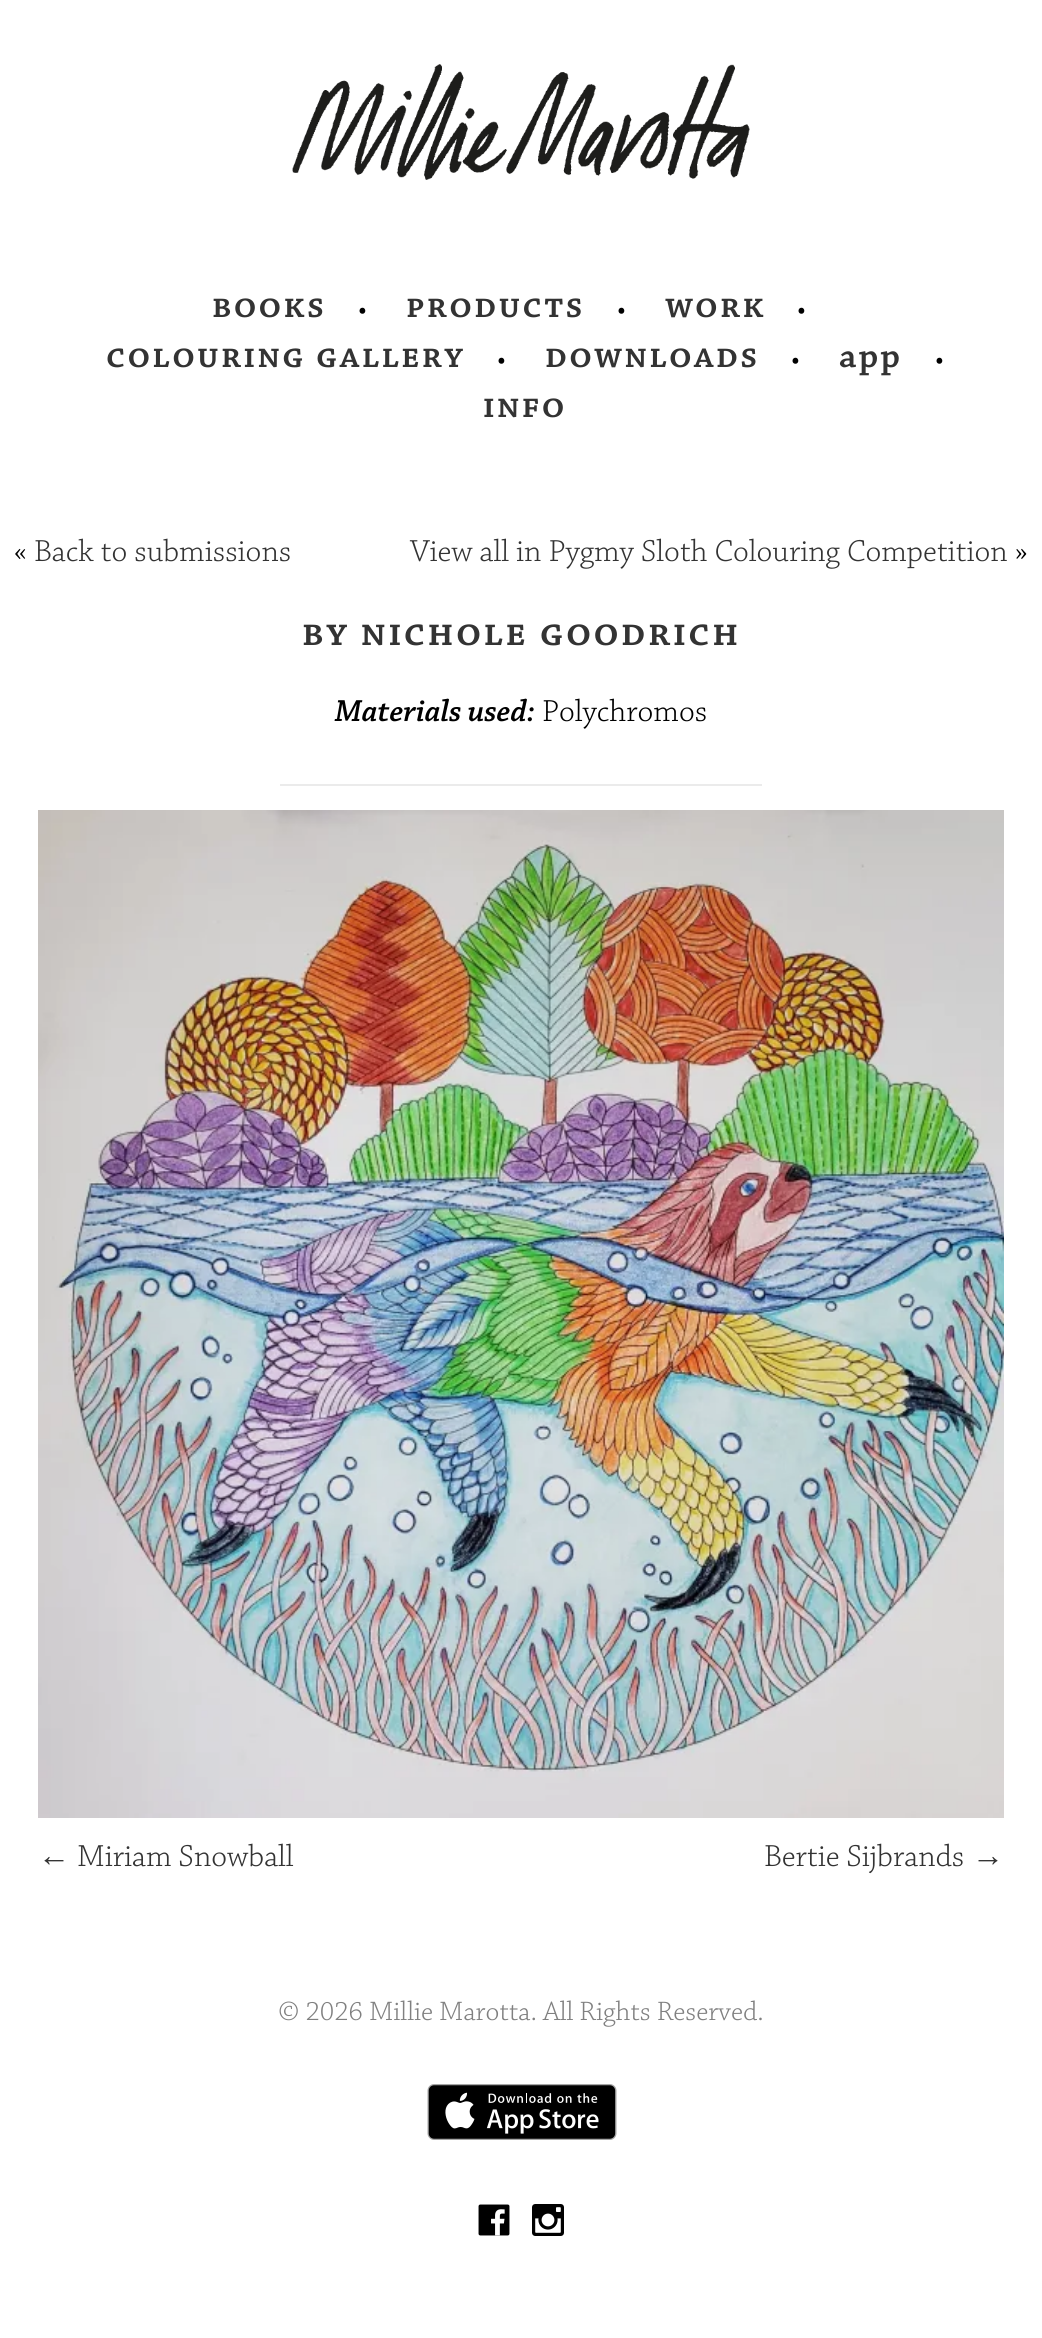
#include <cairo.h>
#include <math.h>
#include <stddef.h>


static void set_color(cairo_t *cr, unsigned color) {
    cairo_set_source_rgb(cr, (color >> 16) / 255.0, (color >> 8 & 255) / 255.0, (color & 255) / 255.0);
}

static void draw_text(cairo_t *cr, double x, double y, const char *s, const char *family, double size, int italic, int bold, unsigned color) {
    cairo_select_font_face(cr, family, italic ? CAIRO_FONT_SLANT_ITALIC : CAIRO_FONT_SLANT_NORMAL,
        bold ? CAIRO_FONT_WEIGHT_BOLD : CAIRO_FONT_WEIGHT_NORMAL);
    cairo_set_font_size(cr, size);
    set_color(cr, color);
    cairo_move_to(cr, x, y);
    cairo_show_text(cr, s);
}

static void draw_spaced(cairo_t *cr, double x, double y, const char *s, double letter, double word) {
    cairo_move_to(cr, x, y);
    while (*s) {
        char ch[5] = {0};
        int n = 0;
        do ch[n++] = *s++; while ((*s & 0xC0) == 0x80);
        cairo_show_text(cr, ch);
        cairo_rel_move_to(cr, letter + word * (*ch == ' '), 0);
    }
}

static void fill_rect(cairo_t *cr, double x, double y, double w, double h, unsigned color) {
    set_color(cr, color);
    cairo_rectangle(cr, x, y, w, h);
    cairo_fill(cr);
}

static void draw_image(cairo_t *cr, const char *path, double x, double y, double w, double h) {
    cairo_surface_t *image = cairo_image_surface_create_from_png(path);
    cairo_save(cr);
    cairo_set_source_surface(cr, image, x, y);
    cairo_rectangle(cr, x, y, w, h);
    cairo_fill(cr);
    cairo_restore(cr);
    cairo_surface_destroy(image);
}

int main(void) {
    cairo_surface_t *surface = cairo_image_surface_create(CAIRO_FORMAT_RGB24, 1042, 2338);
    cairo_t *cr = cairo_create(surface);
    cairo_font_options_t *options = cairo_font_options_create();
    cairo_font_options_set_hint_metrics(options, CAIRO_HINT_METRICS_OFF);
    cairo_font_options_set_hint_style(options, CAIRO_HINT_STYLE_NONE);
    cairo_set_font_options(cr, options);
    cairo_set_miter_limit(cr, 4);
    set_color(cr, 0xFFFFFF);
    cairo_paint(cr);
    draw_image(cr, "assets/img1.png", 292, 64, 458, 116);
    cairo_select_font_face(cr, "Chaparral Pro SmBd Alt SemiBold", CAIRO_FONT_SLANT_NORMAL, CAIRO_FONT_WEIGHT_NORMAL);
    cairo_set_font_size(cr, 36);
    set_color(cr, 0x333333);
    draw_spaced(cr, 212, 317, "books", 2.25, 0);
    draw_text(cr, 358, 319, "•", "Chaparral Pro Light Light", 32, 0, 0, 0x000000);
    cairo_select_font_face(cr, "Chaparral Pro SmBd Alt SemiBold", CAIRO_FONT_SLANT_NORMAL, CAIRO_FONT_WEIGHT_NORMAL);
    cairo_set_font_size(cr, 36);
    set_color(cr, 0x333333);
    draw_spaced(cr, 406, 317, "products", 2.25, 0);
    draw_text(cr, 617, 319, "•", "Chaparral Pro Light Light", 32, 0, 0, 0x000000);
    cairo_select_font_face(cr, "Chaparral Pro SmBd Alt SemiBold", CAIRO_FONT_SLANT_NORMAL, CAIRO_FONT_WEIGHT_NORMAL);
    cairo_set_font_size(cr, 36);
    set_color(cr, 0x333333);
    draw_spaced(cr, 665, 317, "work", 2.25, 0);
    draw_text(cr, 797, 319, "•", "Chaparral Pro Light Light", 32, 0, 0, 0x000000);
    cairo_select_font_face(cr, "Chaparral Pro SmBd Alt SemiBold", CAIRO_FONT_SLANT_NORMAL, CAIRO_FONT_WEIGHT_NORMAL);
    cairo_set_font_size(cr, 36);
    set_color(cr, 0x333333);
    draw_spaced(cr, 106, 367, "colouring gallery", 2.25, 0);
    draw_text(cr, 497, 369, "•", "Chaparral Pro Light Light", 32, 0, 0, 0x000000);
    cairo_select_font_face(cr, "Chaparral Pro SmBd Alt SemiBold", CAIRO_FONT_SLANT_NORMAL, CAIRO_FONT_WEIGHT_NORMAL);
    cairo_set_font_size(cr, 36);
    set_color(cr, 0x333333);
    draw_spaced(cr, 545, 367, "downloads", 2.25, 0);
    draw_text(cr, 791, 369, "•", "Chaparral Pro Light Light", 32, 0, 0, 0x000000);
    cairo_select_font_face(cr, "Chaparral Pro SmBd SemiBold", CAIRO_FONT_SLANT_NORMAL, CAIRO_FONT_WEIGHT_NORMAL);
    cairo_set_font_size(cr, 36);
    set_color(cr, 0x333333);
    draw_spaced(cr, 839, 367, "app", 2.25, 0);
    draw_text(cr, 935, 369, "•", "Chaparral Pro Light Light", 32, 0, 0, 0x000000);
    cairo_select_font_face(cr, "Chaparral Pro SmBd Alt SemiBold", CAIRO_FONT_SLANT_NORMAL, CAIRO_FONT_WEIGHT_NORMAL);
    cairo_set_font_size(cr, 36);
    set_color(cr, 0x333333);
    draw_spaced(cr, 483, 417, "info", 2.25, 0);
    draw_text(cr, 14, 561, "«", "Chaparral Pro Light Light", 32, 0, 0, 0x000000);
    draw_text(cr, 34, 561, "Back to submissions", "Chaparral Pro Light Light", 32, 0, 0, 0x333333);
    draw_text(cr, 410, 561, "View all in Pygmy Sloth Colouring Competition", "Chaparral Pro Light Light", 32, 0, 0, 0x333333);
    draw_text(cr, 1015, 561, "»", "Chaparral Pro Light Light", 32, 0, 0, 0x000000);
    cairo_select_font_face(cr, "Chaparral Pro SmBd Alt SemiBold", CAIRO_FONT_SLANT_NORMAL, CAIRO_FONT_WEIGHT_NORMAL);
    cairo_set_font_size(cr, 40);
    set_color(cr, 0x333333);
    draw_spaced(cr, 302, 645, "by nichole goodrich", 2.5, 0);
    draw_text(cr, 335, 721, "Materials used:", "Chaparral Pro SmBd SemiBold", 32, 1, 0, 0x000000);
    draw_text(cr, 542, 721, "Polychromos", "Chaparral Pro Light Light", 32, 0, 0, 0x000000);
    fill_rect(cr, 280, 784, 482, 2, 0xEBEBEB);
    draw_image(cr, "assets/img2.png", 38, 810, 966, 1008);
    draw_text(cr, 38, 1866, "←", "Liberation Sans", 32, 0, 0, 0x333333);
    draw_text(cr, 77, 1866, "Miriam Snowball", "Chaparral Pro Light Light", 32, 0, 0, 0x333333);
    draw_text(cr, 764, 1866, "Bertie Sijbrands", "Chaparral Pro Light Light", 32, 0, 0, 0x333333);
    draw_text(cr, 972, 1866, "→", "Liberation Sans", 32, 0, 0, 0x333333);
    draw_text(cr, 278, 2020, "© 2026 Millie Marotta. All Rights Reserved.", "Chaparral Pro Light Light", 28, 0, 0, 0x808080);
    draw_image(cr, "assets/img3.png", 427, 2084, 190, 56);
    draw_image(cr, "assets/img4.png", 478, 2204, 32, 32);
    draw_image(cr, "assets/img5.png", 532, 2204, 32, 32);
    cairo_surface_write_to_png(surface, "output.png");
    cairo_font_options_destroy(options);
    cairo_destroy(cr);
    cairo_surface_destroy(surface);
    return 0;
}
